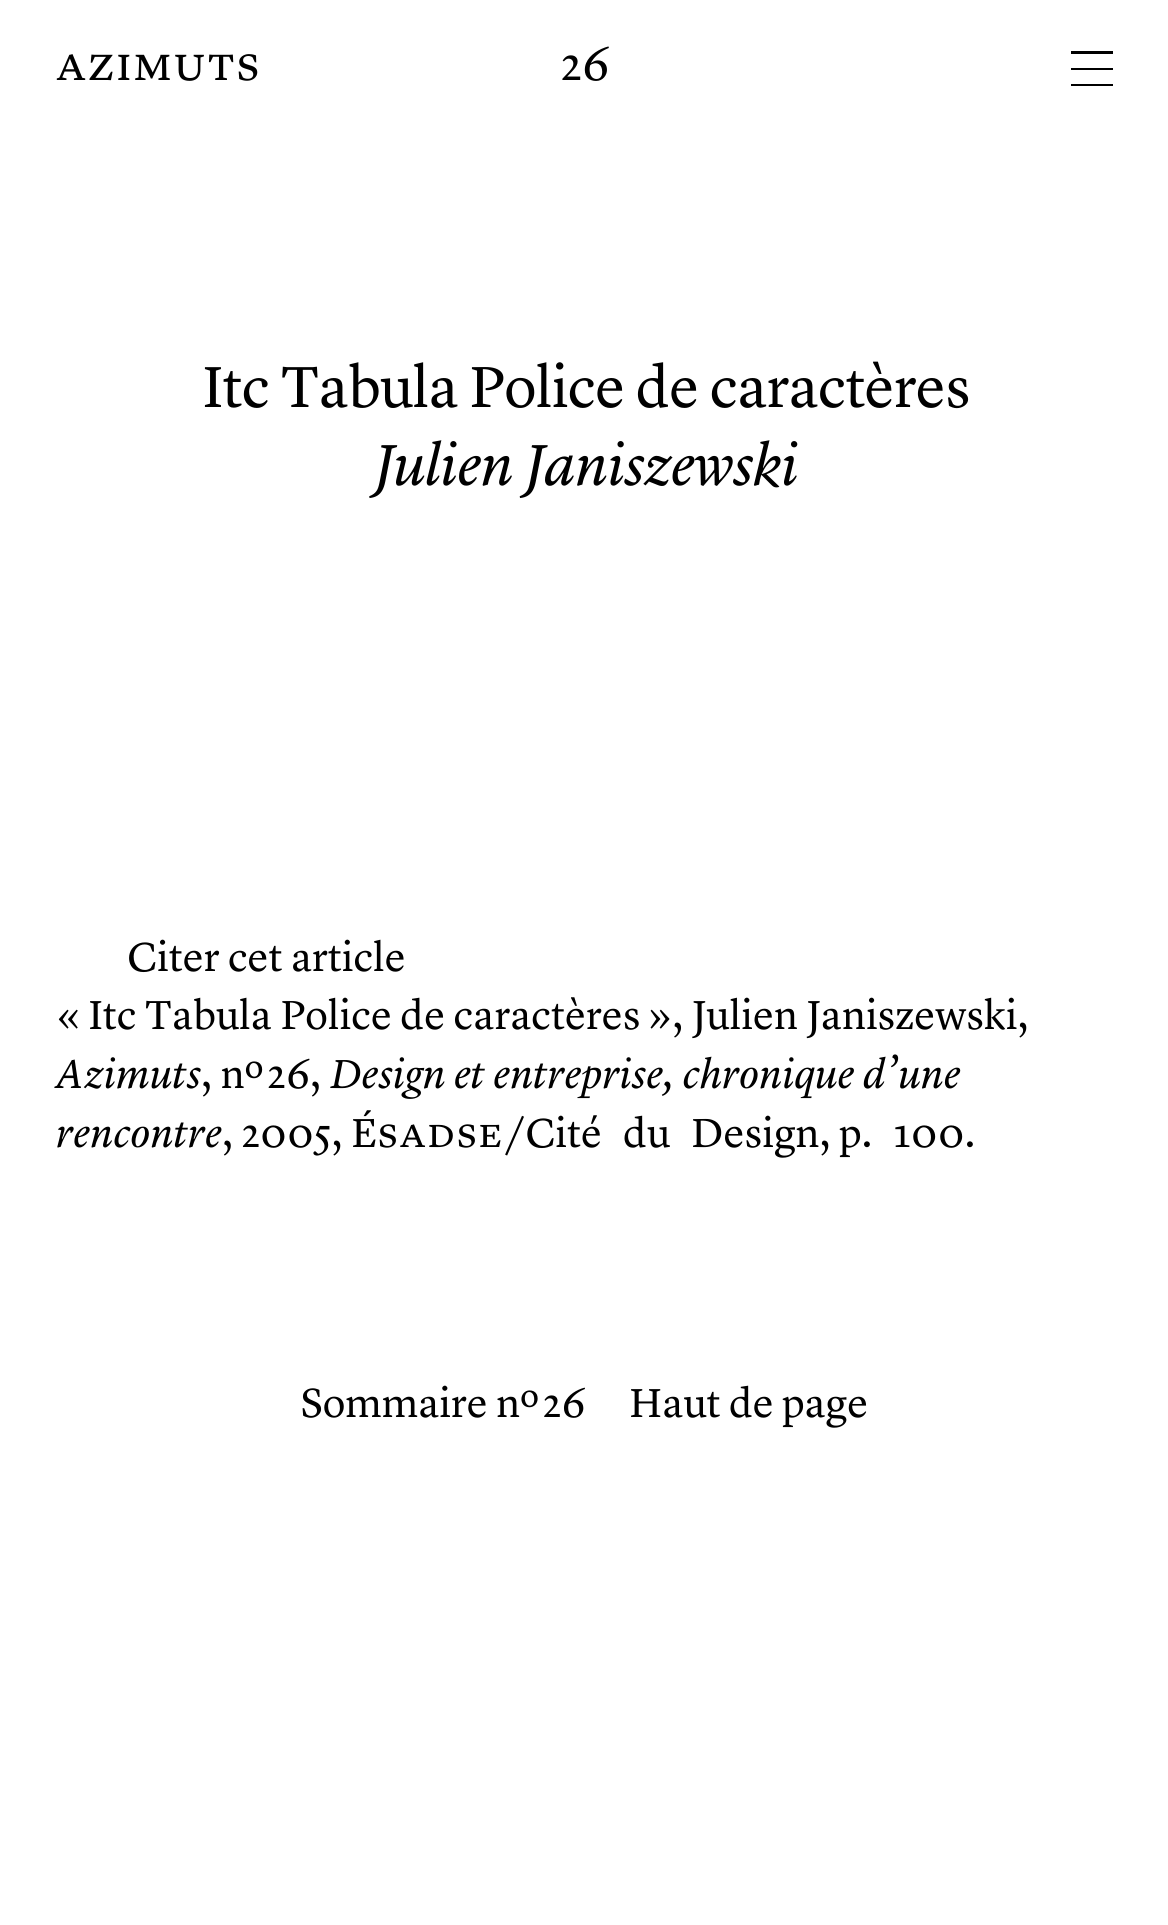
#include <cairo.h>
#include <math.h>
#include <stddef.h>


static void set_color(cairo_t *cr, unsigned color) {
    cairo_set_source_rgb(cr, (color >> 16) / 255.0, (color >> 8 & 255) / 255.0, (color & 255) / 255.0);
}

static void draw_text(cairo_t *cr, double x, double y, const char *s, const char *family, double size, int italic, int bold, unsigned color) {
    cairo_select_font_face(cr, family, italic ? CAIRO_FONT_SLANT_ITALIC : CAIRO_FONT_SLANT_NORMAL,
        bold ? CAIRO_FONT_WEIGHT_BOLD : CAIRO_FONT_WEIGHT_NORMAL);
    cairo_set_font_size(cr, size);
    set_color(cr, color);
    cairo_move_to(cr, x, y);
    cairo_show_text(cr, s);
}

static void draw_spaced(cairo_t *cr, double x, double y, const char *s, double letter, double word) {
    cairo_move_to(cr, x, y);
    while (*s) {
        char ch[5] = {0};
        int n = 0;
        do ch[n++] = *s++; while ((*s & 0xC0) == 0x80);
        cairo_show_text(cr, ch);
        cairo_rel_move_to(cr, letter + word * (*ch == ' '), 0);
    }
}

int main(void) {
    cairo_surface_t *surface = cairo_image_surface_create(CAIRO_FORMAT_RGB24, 1168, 1925);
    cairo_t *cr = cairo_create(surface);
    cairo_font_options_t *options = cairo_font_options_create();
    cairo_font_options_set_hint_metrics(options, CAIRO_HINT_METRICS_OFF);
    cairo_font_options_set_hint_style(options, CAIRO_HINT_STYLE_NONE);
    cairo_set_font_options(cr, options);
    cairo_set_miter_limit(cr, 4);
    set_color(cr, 0xFFFFFF);
    cairo_paint(cr);
    cairo_select_font_face(cr, "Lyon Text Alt", CAIRO_FONT_SLANT_NORMAL, CAIRO_FONT_WEIGHT_NORMAL);
    cairo_set_font_size(cr, 48);
    set_color(cr, 0x000000);
    draw_spaced(cr, 56, 80, "azimuts", 2, 0);
    draw_text(cr, 561, 80, "26", "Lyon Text", 48, 0, 0, 0x000000);
    cairo_new_path(cr);
    cairo_move_to(cr, 1071, 68);
    cairo_line_to(cr, 1113, 68);
    cairo_line_to(cr, 1113, 70);
    cairo_line_to(cr, 1071, 70);
    cairo_close_path(cr);
    cairo_move_to(cr, 1071, 84);
    cairo_line_to(cr, 1113, 84);
    cairo_line_to(cr, 1113, 86);
    cairo_line_to(cr, 1071, 86);
    cairo_close_path(cr);
    cairo_move_to(cr, 1071, 51);
    cairo_line_to(cr, 1113, 51);
    cairo_line_to(cr, 1113, 54);
    cairo_line_to(cr, 1071, 54);
    cairo_close_path(cr);
    cairo_fill(cr);
    cairo_set_font_size(cr, 60);
    draw_spaced(cr, 202, 407, "Itc Tabula Police de caractères", -0.7, 0);
    cairo_select_font_face(cr, "Lyon Text", CAIRO_FONT_SLANT_ITALIC, CAIRO_FONT_WEIGHT_NORMAL);
    draw_spaced(cr, 373, 485, "Julien Janiszewski", -0.7, 0);
    draw_text(cr, 127, 971, "Citer cet article", "Lyon Text", 42, 0, 0, 0x000000);
    draw_text(cr, 56, 1029, "« Itc Tabula Police de caractères », Julien Janiszewski,", "Lyon Text", 42, 0, 0, 0x000000);
    draw_text(cr, 56, 1088, "Azimuts", "Lyon Text", 42, 1, 0, 0x000000);
    draw_text(cr, 201, 1088, ", nº 26,", "Lyon Text", 42, 0, 0, 0x000000);
    draw_text(cr, 330, 1088, "Design et entreprise, chronique d’une", "Lyon Text", 42, 1, 0, 0x000000);
    draw_text(cr, 56, 1147, "rencontre", "Lyon Text", 42, 1, 0, 0x000000);
    draw_text(cr, 222, 1147, ", 2005, É", "Lyon Text", 42, 0, 0, 0x000000);
    cairo_select_font_face(cr, "Lyon Text Alt", CAIRO_FONT_SLANT_NORMAL, CAIRO_FONT_WEIGHT_NORMAL);
    draw_spaced(cr, 378, 1147, "sadse", 2, 0);
    draw_text(cr, 504, 1147, "/Cité du Design, p. 100.", "Lyon Text", 42, 0, 0, 0x000000);
    draw_text(cr, 301, 1417, "Sommaire nº 26", "Lyon Text", 42, 0, 0, 0x000000);
    draw_text(cr, 629, 1417, "Haut de page", "Lyon Text", 42, 0, 0, 0x000000);
    cairo_surface_write_to_png(surface, "output.png");
    cairo_font_options_destroy(options);
    cairo_destroy(cr);
    cairo_surface_destroy(surface);
    return 0;
}
